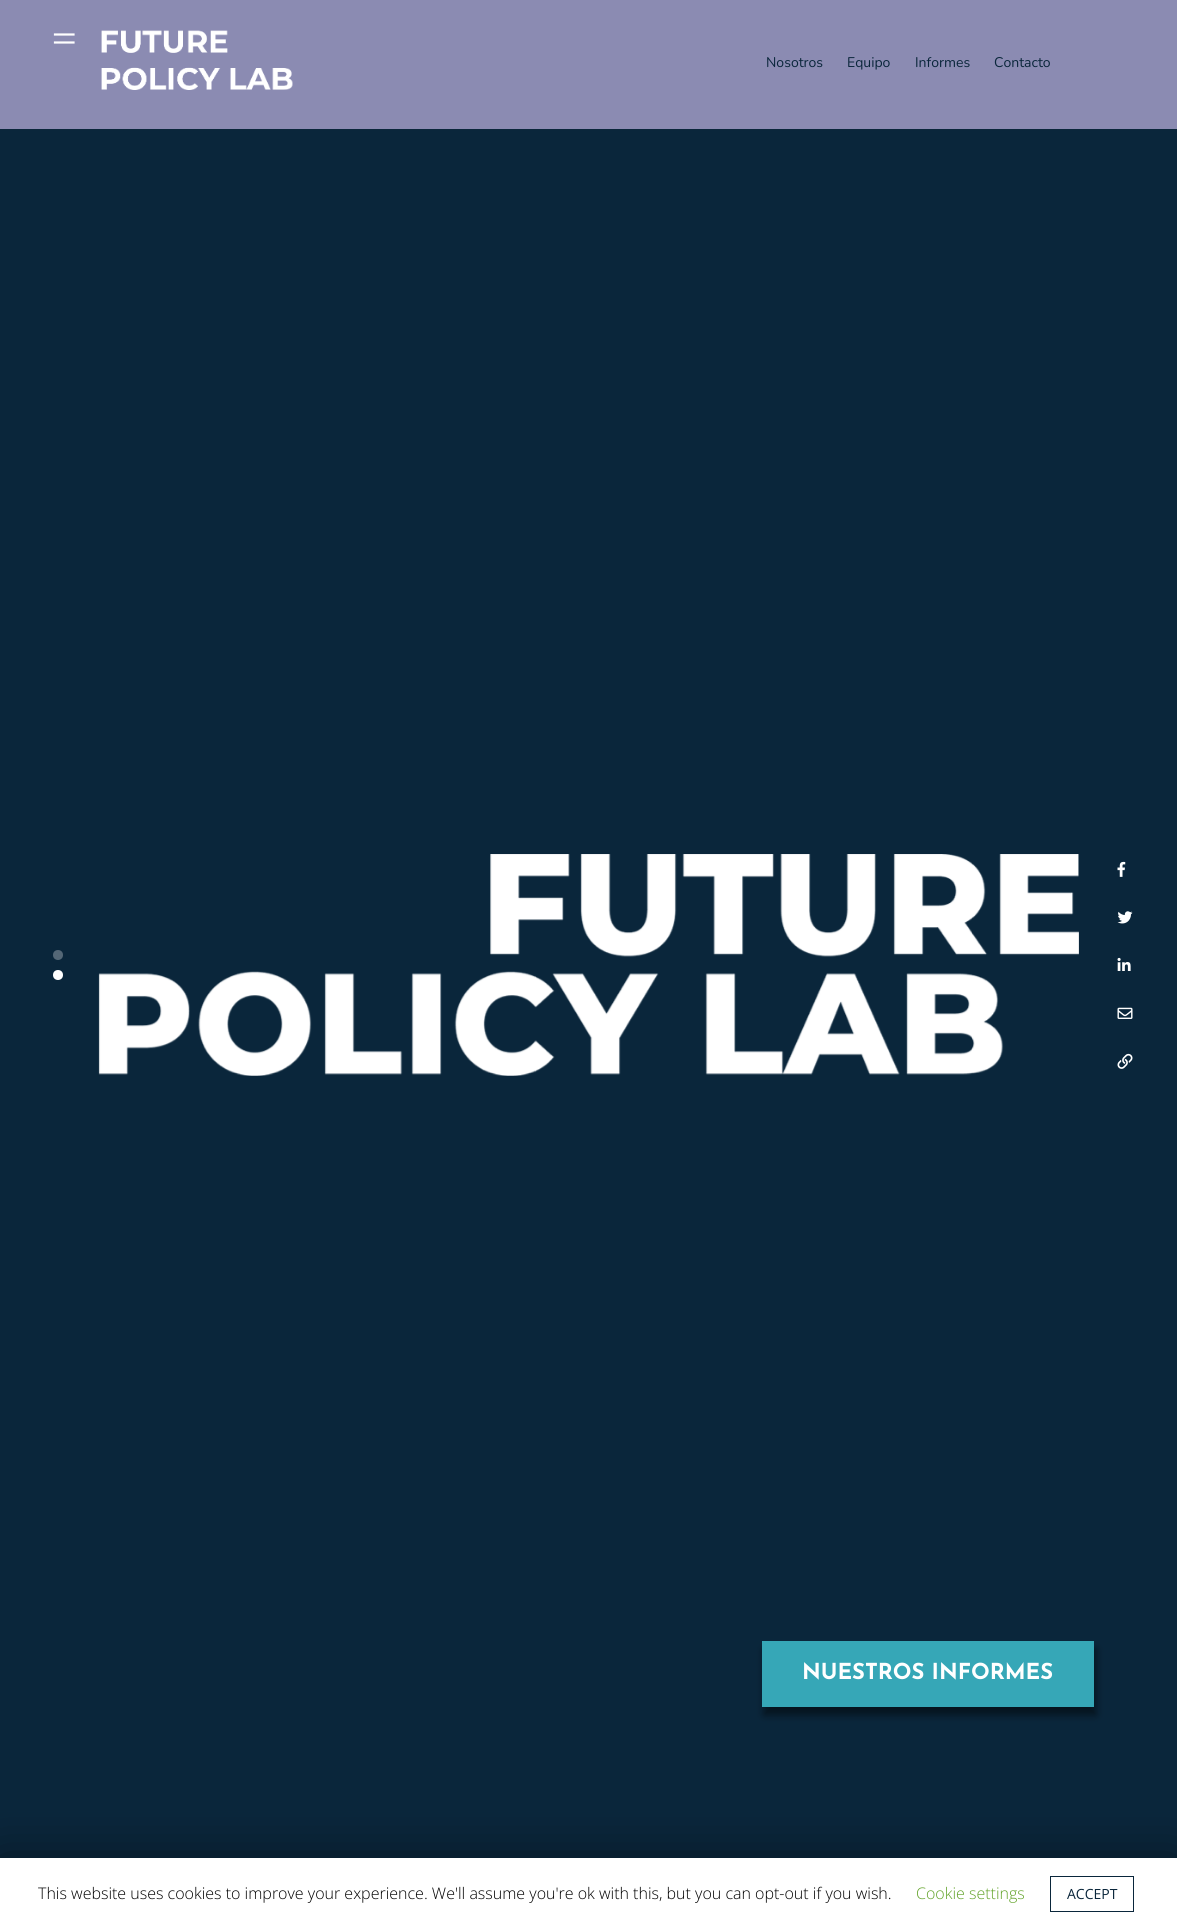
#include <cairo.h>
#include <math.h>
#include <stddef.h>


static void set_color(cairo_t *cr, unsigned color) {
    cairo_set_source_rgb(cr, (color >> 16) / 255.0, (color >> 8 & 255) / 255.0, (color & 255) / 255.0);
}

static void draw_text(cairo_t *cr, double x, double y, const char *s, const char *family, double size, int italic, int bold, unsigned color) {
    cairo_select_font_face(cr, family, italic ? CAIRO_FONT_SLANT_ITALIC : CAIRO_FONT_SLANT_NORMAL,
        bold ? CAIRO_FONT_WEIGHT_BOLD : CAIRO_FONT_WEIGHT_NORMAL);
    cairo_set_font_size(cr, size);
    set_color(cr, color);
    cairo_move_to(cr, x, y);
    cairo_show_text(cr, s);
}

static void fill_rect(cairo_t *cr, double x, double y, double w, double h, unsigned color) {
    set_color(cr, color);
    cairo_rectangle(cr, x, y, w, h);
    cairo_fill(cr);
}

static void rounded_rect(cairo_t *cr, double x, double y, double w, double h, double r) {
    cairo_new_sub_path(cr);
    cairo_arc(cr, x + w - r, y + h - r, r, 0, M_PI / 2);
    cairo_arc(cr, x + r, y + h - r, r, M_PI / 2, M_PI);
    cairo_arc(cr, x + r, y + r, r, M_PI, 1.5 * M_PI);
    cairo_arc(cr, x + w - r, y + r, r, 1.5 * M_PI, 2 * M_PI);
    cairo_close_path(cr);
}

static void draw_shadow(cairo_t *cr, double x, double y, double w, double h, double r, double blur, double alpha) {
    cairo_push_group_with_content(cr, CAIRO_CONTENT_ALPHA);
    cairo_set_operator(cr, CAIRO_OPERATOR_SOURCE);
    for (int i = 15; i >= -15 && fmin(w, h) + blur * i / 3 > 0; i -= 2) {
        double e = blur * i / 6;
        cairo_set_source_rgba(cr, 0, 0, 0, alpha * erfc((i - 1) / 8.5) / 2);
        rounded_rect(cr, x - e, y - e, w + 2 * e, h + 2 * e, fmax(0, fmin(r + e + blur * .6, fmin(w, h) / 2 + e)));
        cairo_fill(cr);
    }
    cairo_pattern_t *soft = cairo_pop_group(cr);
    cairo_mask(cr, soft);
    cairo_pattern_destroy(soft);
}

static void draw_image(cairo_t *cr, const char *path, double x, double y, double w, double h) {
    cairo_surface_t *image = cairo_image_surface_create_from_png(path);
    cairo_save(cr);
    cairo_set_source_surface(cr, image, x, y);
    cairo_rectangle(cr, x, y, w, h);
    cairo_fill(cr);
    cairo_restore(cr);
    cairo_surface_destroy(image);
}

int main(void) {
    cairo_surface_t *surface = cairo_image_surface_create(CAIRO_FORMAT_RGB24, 1177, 1930);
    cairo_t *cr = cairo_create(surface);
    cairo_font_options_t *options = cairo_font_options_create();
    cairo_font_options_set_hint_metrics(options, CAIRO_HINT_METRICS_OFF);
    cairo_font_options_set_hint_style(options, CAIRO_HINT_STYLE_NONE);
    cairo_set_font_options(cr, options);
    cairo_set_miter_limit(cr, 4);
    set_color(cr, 0x0A263B);
    cairo_paint(cr);
    set_color(cr, 0x546776);
    cairo_arc(cr, 58, 955, 5, 0, 2 * M_PI);
    cairo_fill(cr);
    set_color(cr, 0xFFFFFF);
    cairo_arc(cr, 58, 975, 5, 0, 2 * M_PI);
    cairo_fill(cr);
    fill_rect(cr, 0, 0, 1177, 129, 0x8B8BB2);
    cairo_new_path(cr);
    cairo_move_to(cr, 55, 34.5);
    cairo_line_to(cr, 73.5, 34.5);
    cairo_move_to(cr, 55, 42.5);
    cairo_line_to(cr, 73.5, 42.5);
    set_color(cr, 0xFFFFFF);
    cairo_set_line_width(cr, 2.2);
    cairo_set_line_cap(cr, CAIRO_LINE_CAP_SQUARE);
    cairo_stroke(cr);
    draw_image(cr, "assets/img1.png", 101, 30, 192, 60);
    draw_text(cr, 766, 67, "Nosotros", "Nunito", 14, 0, 0, 0x0A263B);
    draw_text(cr, 847, 67, "Equipo", "Nunito", 14, 0, 0, 0x0A263B);
    draw_text(cr, 915, 67, "Informes", "Nunito", 14, 0, 0, 0x0A263B);
    draw_text(cr, 994, 67, "Contacto", "Nunito", 14, 0, 0, 0x0A263B);
    draw_image(cr, "assets/img2.png", 1117, 861, 9, 16);
    draw_image(cr, "assets/img3.png", 1117, 911, 16, 13);
    draw_image(cr, "assets/img4.png", 1117, 957, 14, 14);
    draw_image(cr, "assets/img5.png", 1117, 1007, 16, 12);
    draw_image(cr, "assets/img6.png", 1117, 1053, 16, 16);
    draw_image(cr, "assets/img7.png", 98, 854, 981, 222);
    set_color(cr, 0x000000);
    draw_shadow(cr, 764, 1649, 332, 66, 0, 4, 0.5);
    fill_rect(cr, 762, 1641, 332, 66, 0x36A7B7);
    draw_text(cr, 802, 1679, "NUESTROS INFORMES", "Josefin Sans", 22, 0, 1, 0xFFFFFF);
    set_color(cr, 0x000000);
    draw_shadow(cr, 0, 1863, 1177, 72, 0, 25, 0.5);
    fill_rect(cr, 0, 1858, 1177, 72, 0xFFFFFF);
    draw_text(cr, 38, 1899, "This website uses cookies to improve your experience. We'll assume you're ok with this, but you can opt-out if you wish.", "Open Sans Light", 16, 0, 0, 0x000000);
    draw_text(cr, 916, 1899, "Cookie settings", "Open Sans Light", 16, 0, 0, 0x62A329);
    cairo_rectangle(cr, 1050.5, 1876.5, 83, 35);
    set_color(cr, 0x0A263B);
    cairo_set_line_width(cr, 1);
    cairo_set_line_cap(cr, CAIRO_LINE_CAP_BUTT);
    cairo_stroke(cr);
    draw_text(cr, 1067, 1899, "ACCEPT", "Open Sans", 14, 0, 0, 0x0A263B);
    cairo_surface_write_to_png(surface, "output.png");
    cairo_font_options_destroy(options);
    cairo_destroy(cr);
    cairo_surface_destroy(surface);
    return 0;
}
